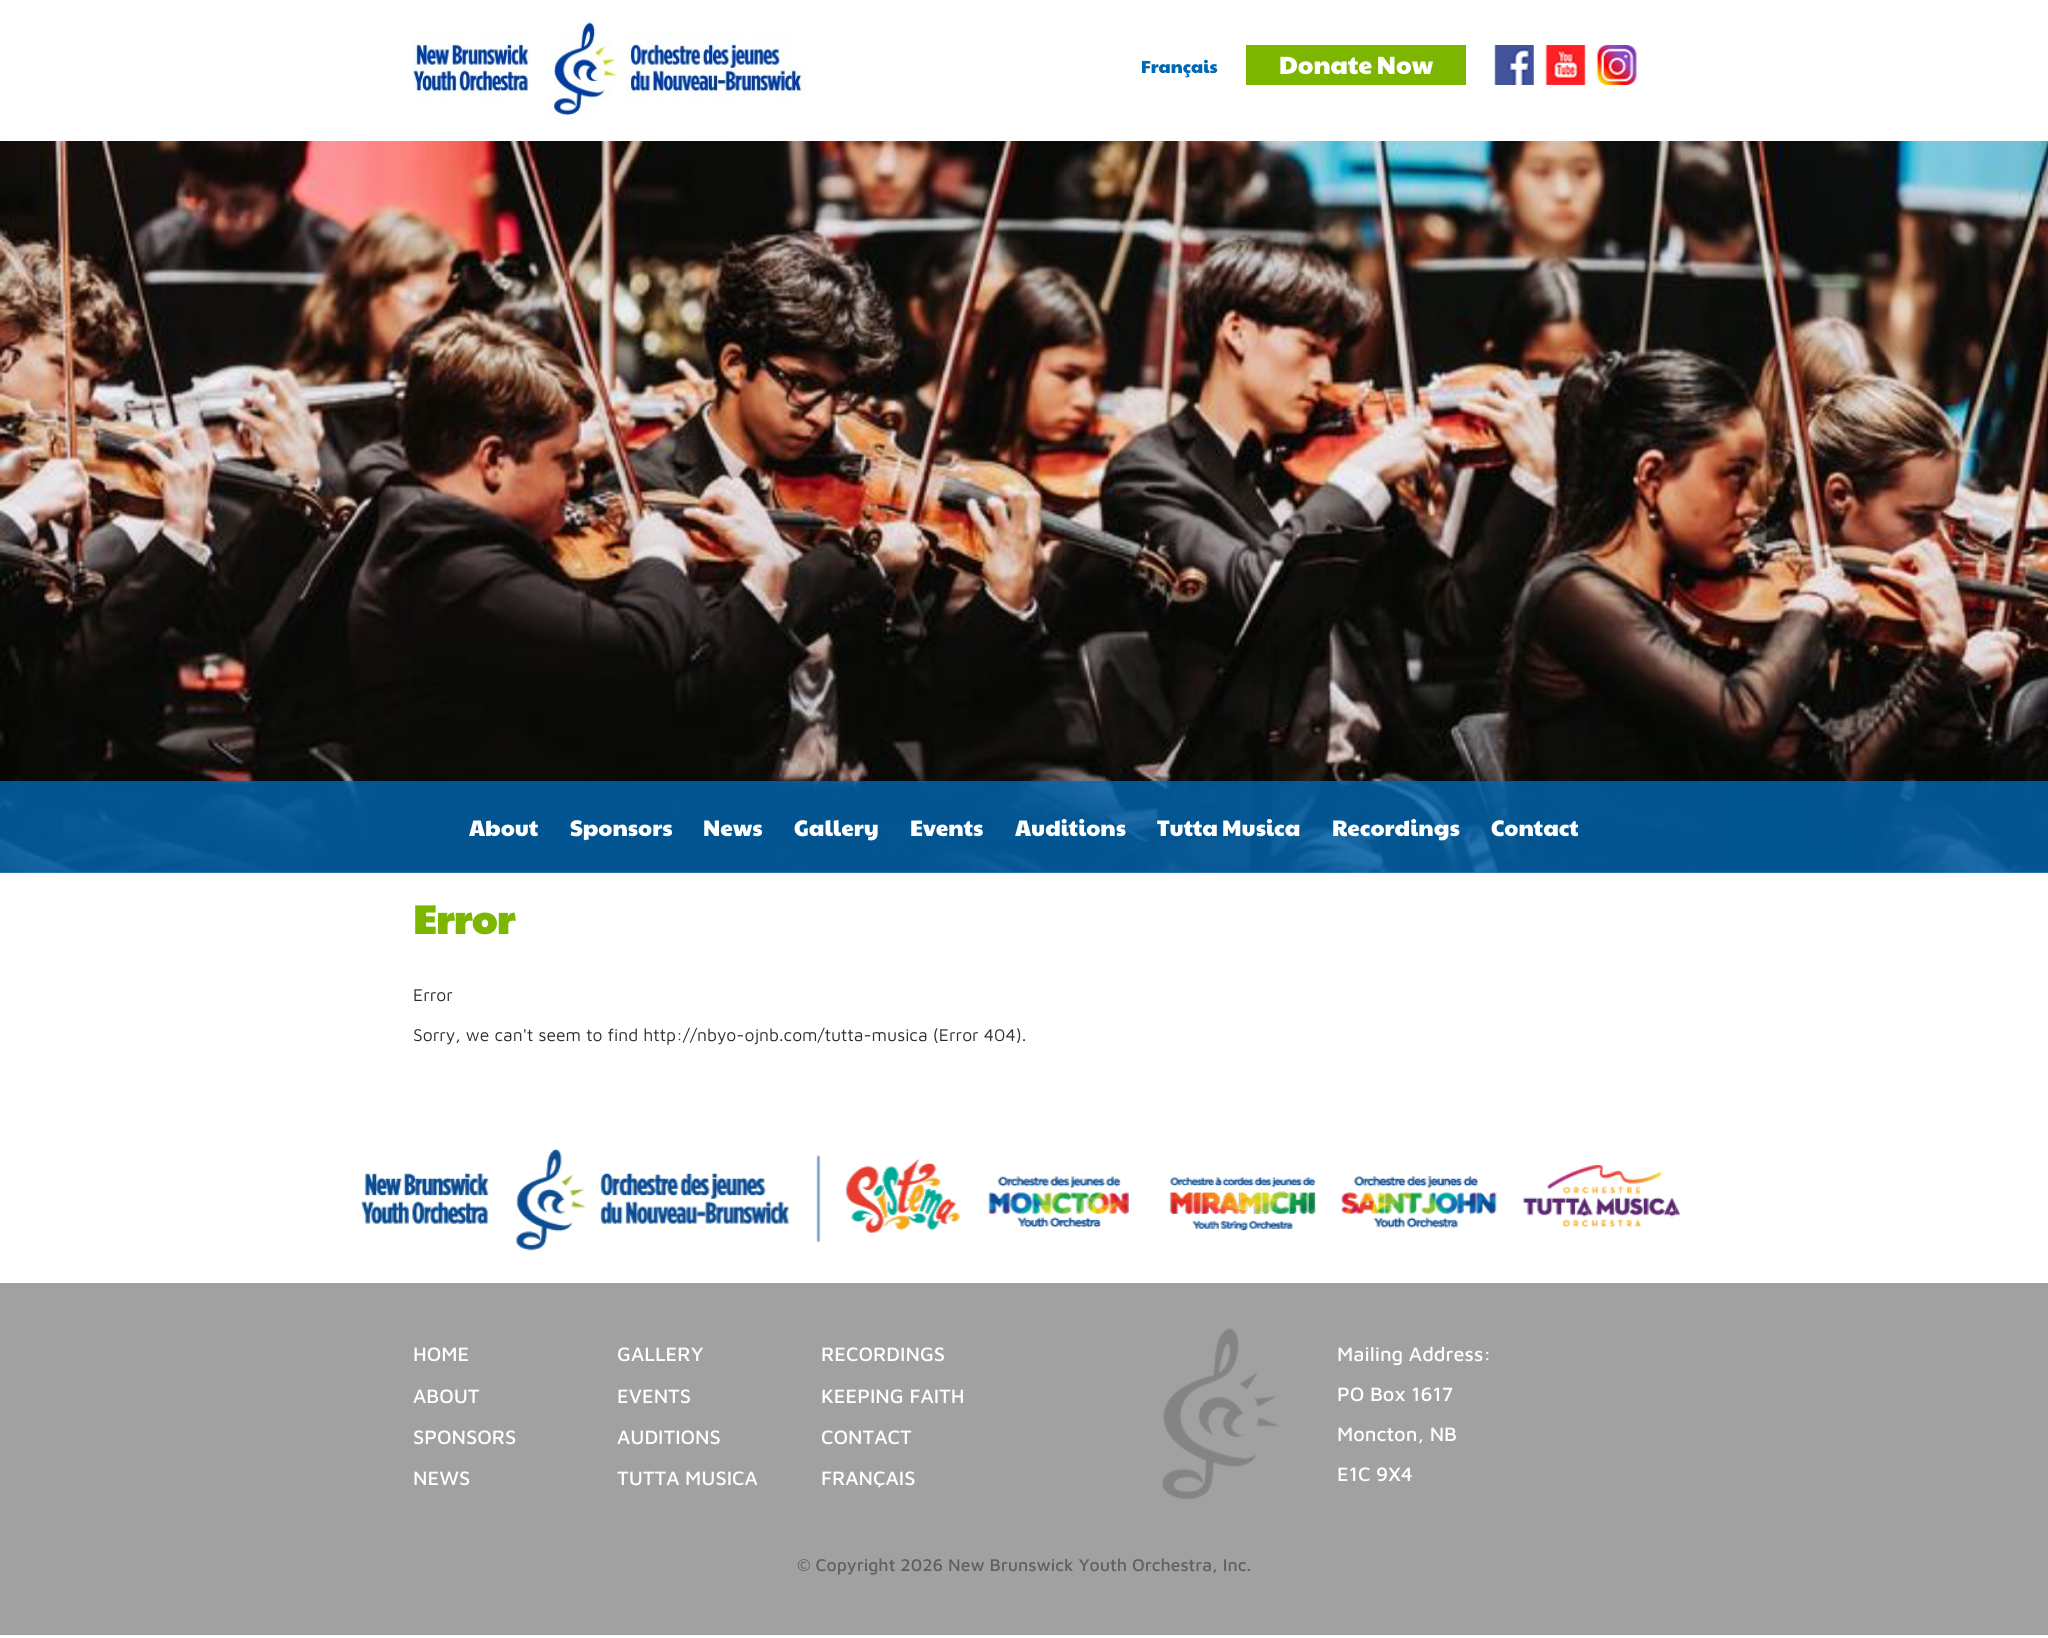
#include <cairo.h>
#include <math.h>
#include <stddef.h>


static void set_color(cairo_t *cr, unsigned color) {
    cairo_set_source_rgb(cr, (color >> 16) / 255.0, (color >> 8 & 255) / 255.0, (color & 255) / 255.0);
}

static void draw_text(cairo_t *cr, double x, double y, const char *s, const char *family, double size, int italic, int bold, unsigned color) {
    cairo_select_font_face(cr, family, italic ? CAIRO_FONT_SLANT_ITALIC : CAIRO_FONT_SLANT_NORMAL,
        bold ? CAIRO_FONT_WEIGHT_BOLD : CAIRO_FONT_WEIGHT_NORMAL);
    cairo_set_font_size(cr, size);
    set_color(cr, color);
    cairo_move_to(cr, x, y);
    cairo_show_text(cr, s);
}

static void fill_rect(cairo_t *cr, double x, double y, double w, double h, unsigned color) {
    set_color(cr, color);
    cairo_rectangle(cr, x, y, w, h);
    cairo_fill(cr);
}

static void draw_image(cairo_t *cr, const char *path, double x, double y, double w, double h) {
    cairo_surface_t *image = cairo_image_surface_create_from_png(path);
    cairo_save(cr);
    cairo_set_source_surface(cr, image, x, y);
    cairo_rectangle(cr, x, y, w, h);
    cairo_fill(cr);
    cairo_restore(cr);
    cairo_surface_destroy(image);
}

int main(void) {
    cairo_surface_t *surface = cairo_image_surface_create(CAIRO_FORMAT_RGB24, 2048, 1638);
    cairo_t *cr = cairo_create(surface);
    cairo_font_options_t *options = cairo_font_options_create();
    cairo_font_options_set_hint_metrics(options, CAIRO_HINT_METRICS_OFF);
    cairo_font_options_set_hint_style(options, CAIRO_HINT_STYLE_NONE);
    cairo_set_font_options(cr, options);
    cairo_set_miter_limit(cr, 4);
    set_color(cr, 0xFFFFFF);
    cairo_paint(cr);
    draw_image(cr, "assets/img1.png", 413, 20, 393, 96);
    draw_text(cr, 1141, 73, "Français", "Paytone One", 17.5, 0, 0, 0x0068B3);
    fill_rect(cr, 1246, 45, 220, 40, 0x7CB600);
    draw_text(cr, 1279, 74, "Donate Now", "Paytone One", 25, 0, 0, 0xFFFFFF);
    draw_image(cr, "assets/img2.png", 1494, 45, 40, 40);
    draw_image(cr, "assets/img3.png", 1545, 45, 41, 40);
    draw_image(cr, "assets/img4.png", 1596, 45, 41, 40);
    draw_image(cr, "assets/img5.png", 0, 141, 2048, 732);
    cairo_set_source_rgba(cr, 0, 0.408, 0.702, 0.8);
    cairo_rectangle(cr, 0, 781, 2048, 92);
    cairo_fill(cr);
    draw_text(cr, 469, 836, "About", "Paytone One", 22.5, 0, 0, 0xFFFFFF);
    draw_text(cr, 570, 836, "Sponsors", "Paytone One", 22.5, 0, 0, 0xFFFFFF);
    draw_text(cr, 703, 836, "News", "Paytone One", 22.5, 0, 0, 0xFFFFFF);
    draw_text(cr, 794, 836, "Gallery", "Paytone One", 22.5, 0, 0, 0xFFFFFF);
    draw_text(cr, 910, 836, "Events", "Paytone One", 22.5, 0, 0, 0xFFFFFF);
    draw_text(cr, 1015, 836, "Auditions", "Paytone One", 22.5, 0, 0, 0xFFFFFF);
    draw_text(cr, 1157, 836, "Tutta Musica", "Paytone One", 22.5, 0, 0, 0xFFFFFF);
    draw_text(cr, 1332, 836, "Recordings", "Paytone One", 22.5, 0, 0, 0xFFFFFF);
    draw_text(cr, 1491, 836, "Contact", "Paytone One", 22.5, 0, 0, 0xFFFFFF);
    draw_text(cr, 413, 934, "Error", "Paytone One", 40, 0, 1, 0x7CB600);
    draw_text(cr, 413, 1001, "Error", "Maven Pro", 17.5, 0, 0, 0x2D2D2D);
    draw_text(cr, 413, 1041, "Sorry, we can't seem to find http://nbyo-ojnb.com/tutta-musica (Error 404).", "Maven Pro", 17.5, 0, 0, 0x2D2D2D);
    draw_image(cr, "assets/img6.png", 361, 1148, 1320, 103);
    fill_rect(cr, 0, 1283, 2048, 352, 0xA1A1A1);
    draw_text(cr, 413, 1361, "HOME", "Maven Pro Medium", 20, 0, 0, 0xFFFFFF);
    draw_text(cr, 617, 1361, "GALLERY", "Maven Pro Medium", 20, 0, 0, 0xFFFFFF);
    draw_text(cr, 821, 1361, "RECORDINGS", "Maven Pro Medium", 20, 0, 0, 0xFFFFFF);
    draw_text(cr, 413, 1403, "ABOUT", "Maven Pro Medium", 20, 0, 0, 0xFFFFFF);
    draw_text(cr, 617, 1403, "EVENTS", "Maven Pro Medium", 20, 0, 0, 0xFFFFFF);
    draw_text(cr, 821, 1403, "KEEPING FAITH", "Maven Pro Medium", 20, 0, 0, 0xFFFFFF);
    draw_text(cr, 413, 1444, "SPONSORS", "Maven Pro Medium", 20, 0, 0, 0xFFFFFF);
    draw_text(cr, 617, 1444, "AUDITIONS", "Maven Pro Medium", 20, 0, 0, 0xFFFFFF);
    draw_text(cr, 821, 1444, "CONTACT", "Maven Pro Medium", 20, 0, 0, 0xFFFFFF);
    draw_text(cr, 413, 1485, "NEWS", "Maven Pro Medium", 20, 0, 0, 0xFFFFFF);
    draw_text(cr, 617, 1485, "TUTTA MUSICA", "Maven Pro Medium", 20, 0, 0, 0xFFFFFF);
    draw_text(cr, 821, 1485, "FRANÇAIS", "Maven Pro Medium", 20, 0, 0, 0xFFFFFF);
    draw_image(cr, "assets/img7.png", 1162, 1328, 117, 171);
    draw_text(cr, 1337, 1361, "Mailing Address:", "Maven Pro Medium", 20, 0, 0, 0xFFFFFF);
    draw_text(cr, 1337, 1401, "PO Box 1617", "Maven Pro Medium", 20, 0, 0, 0xFFFFFF);
    draw_text(cr, 1337, 1441, "Moncton, NB", "Maven Pro Medium", 20, 0, 0, 0xFFFFFF);
    draw_text(cr, 1337, 1481, "E1C 9X4", "Maven Pro Medium", 20, 0, 0, 0xFFFFFF);
    draw_text(cr, 797, 1571, "© Copyright 2026 New Brunswick Youth Orchestra, Inc.", "Maven Pro Medium", 17.5, 0, 0, 0x606060);
    cairo_surface_write_to_png(surface, "output.png");
    cairo_font_options_destroy(options);
    cairo_destroy(cr);
    cairo_surface_destroy(surface);
    return 0;
}
